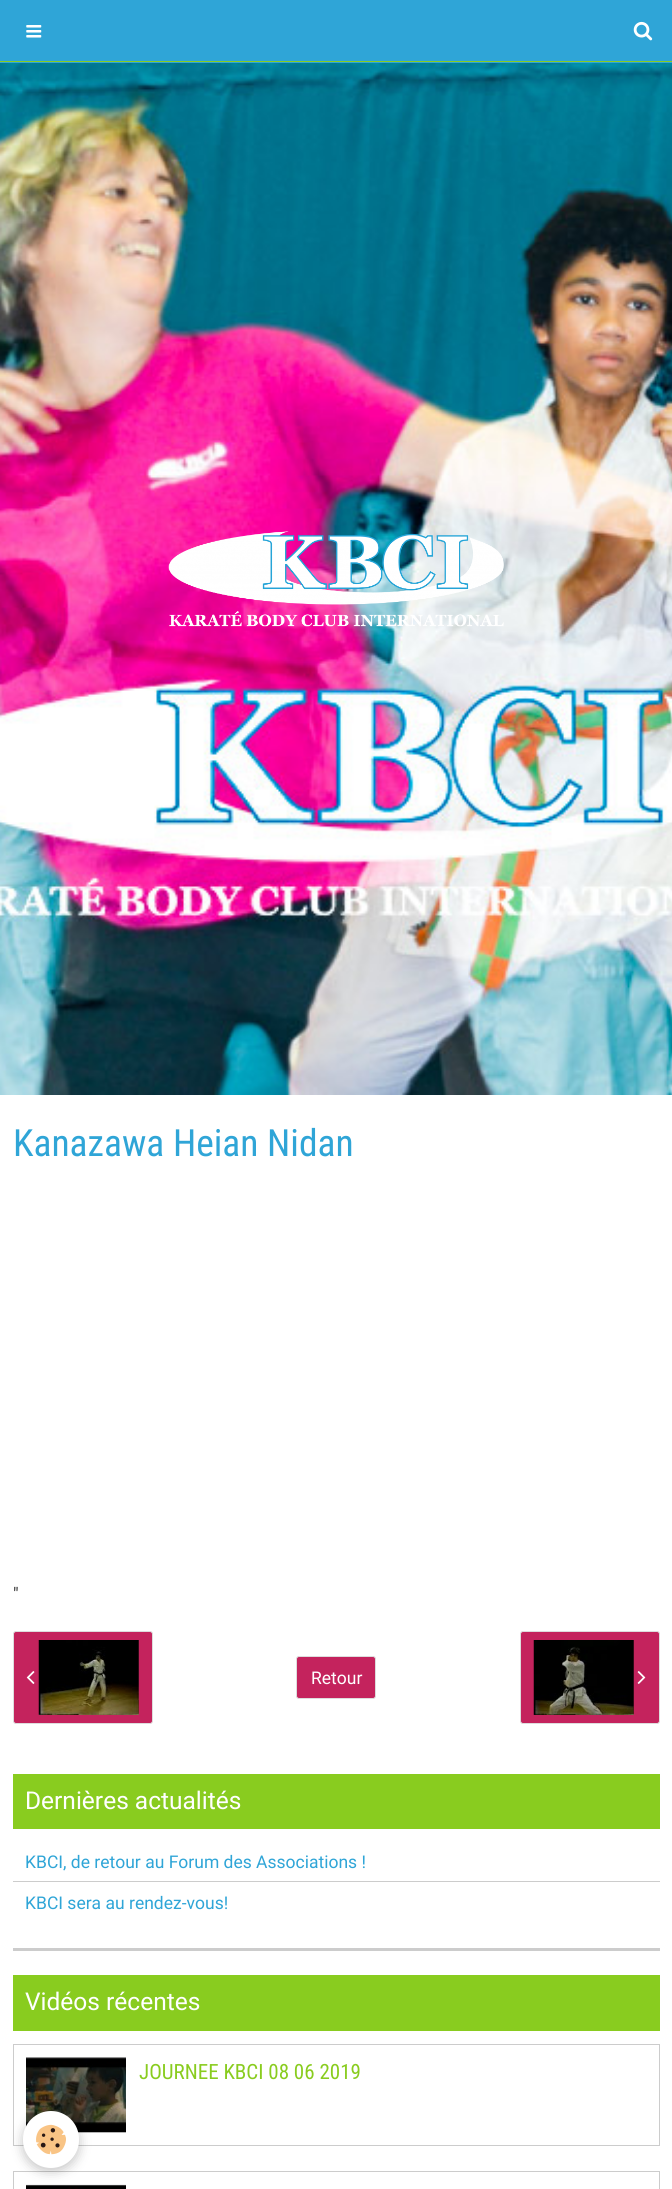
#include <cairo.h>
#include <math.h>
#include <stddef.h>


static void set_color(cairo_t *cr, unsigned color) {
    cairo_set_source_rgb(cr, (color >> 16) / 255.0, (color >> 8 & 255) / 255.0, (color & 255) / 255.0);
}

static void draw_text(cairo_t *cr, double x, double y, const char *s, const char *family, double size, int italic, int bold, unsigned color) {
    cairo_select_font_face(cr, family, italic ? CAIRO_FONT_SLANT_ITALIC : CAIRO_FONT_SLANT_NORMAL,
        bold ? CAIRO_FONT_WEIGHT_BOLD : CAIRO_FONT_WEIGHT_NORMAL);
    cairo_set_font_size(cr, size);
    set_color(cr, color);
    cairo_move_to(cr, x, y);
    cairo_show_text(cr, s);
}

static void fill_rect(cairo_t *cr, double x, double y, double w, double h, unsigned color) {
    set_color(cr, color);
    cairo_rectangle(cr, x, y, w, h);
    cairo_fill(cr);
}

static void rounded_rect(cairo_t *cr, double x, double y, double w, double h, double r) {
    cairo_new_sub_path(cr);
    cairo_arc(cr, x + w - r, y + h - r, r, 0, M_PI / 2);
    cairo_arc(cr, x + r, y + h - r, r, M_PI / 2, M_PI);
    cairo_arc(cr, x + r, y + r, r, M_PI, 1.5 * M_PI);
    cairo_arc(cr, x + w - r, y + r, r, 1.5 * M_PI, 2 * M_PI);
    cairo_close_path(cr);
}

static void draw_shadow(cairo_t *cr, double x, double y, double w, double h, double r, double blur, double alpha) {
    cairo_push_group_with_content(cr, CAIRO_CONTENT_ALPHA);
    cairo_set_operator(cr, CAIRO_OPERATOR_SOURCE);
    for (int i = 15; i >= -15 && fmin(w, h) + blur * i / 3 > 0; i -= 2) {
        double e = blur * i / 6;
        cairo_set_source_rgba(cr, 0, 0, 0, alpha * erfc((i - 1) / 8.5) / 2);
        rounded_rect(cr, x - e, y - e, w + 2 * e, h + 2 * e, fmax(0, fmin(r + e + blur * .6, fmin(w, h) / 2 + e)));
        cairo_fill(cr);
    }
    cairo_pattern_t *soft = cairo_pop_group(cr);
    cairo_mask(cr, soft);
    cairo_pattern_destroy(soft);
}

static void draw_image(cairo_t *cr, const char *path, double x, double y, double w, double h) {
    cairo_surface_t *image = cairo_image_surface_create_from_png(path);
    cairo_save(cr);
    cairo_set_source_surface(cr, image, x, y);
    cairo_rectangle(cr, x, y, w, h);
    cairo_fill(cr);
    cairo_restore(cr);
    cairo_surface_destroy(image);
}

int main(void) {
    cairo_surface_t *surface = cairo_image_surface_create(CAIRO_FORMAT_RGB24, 672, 2189);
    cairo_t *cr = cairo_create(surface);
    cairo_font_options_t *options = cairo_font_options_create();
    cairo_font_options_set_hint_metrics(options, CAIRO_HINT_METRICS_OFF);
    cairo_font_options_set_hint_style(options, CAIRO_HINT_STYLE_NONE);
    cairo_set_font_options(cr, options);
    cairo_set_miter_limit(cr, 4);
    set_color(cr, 0xFFFFFF);
    cairo_paint(cr);
    fill_rect(cr, 0, 0, 672, 63, 0x2FA5D7);
    fill_rect(cr, 0, 61, 672, 1, 0x89CC1F);
    draw_image(cr, "assets/img1.png", 26, 25, 16, 13);
    draw_image(cr, "assets/img2.png", 633, 21, 20, 20);
    draw_image(cr, "assets/img3.png", 0, 63, 672, 1032);
    draw_image(cr, "assets/img4.png", 168, 531, 336, 96);
    draw_text(cr, 13, 1156, "Kanazawa Heian Nidan", "Roboto Condensed", 37.5, 0, 0, 0x2FA5D7);
    draw_text(cr, 13, 1600, "\"", "Roboto", 17.5, 0, 0, 0x333333);
    set_color(cr, 0xC4235D);
    rounded_rect(cr, 13.5, 1631.5, 139, 92, 2.5);
    cairo_fill_preserve(cr);
    set_color(cr, 0xDDDDDD);
    cairo_set_line_width(cr, 1);
    cairo_stroke(cr);
    draw_image(cr, "assets/img5.png", 26, 1671, 9, 13);
    draw_image(cr, "assets/img6.png", 38, 1640, 101, 75);
    set_color(cr, 0xC4235D);
    rounded_rect(cr, 296.5, 1656.5, 79, 42, 2.5);
    cairo_fill_preserve(cr);
    set_color(cr, 0xDDDDDD);
    cairo_stroke(cr);
    draw_text(cr, 311, 1684, "Retour", "Roboto", 17.5, 0, 0, 0xFFFFFF);
    set_color(cr, 0xC4235D);
    rounded_rect(cr, 520.5, 1631.5, 139, 92, 2.5);
    cairo_fill_preserve(cr);
    set_color(cr, 0xDDDDDD);
    cairo_stroke(cr);
    draw_image(cr, "assets/img7.png", 533, 1640, 101, 75);
    draw_image(cr, "assets/img8.png", 637, 1671, 9, 13);
    fill_rect(cr, 13, 1948, 647, 3, 0xCCCCCC);
    fill_rect(cr, 13, 1774, 647, 55, 0x89CC1F);
    draw_text(cr, 25, 1809, "Dernières actualités", "Roboto", 24.5, 0, 0, 0xFFFFFF);
    fill_rect(cr, 13, 1881, 647, 1, 0xCCCCCC);
    draw_text(cr, 25, 1868, "KBCI, de retour au Forum des Associations !", "Roboto", 17.5, 0, 0, 0x2FA5D7);
    draw_text(cr, 25, 1909, "KBCI sera au rendez-vous!", "Roboto", 17.5, 0, 0, 0x2FA5D7);
    fill_rect(cr, 13, 1975, 647, 56, 0x89CC1F);
    draw_text(cr, 25, 2010, "Vidéos récentes", "Roboto", 24.5, 0, 0, 0xFFFFFF);
    cairo_rectangle(cr, 13.5, 2044.5, 646, 101);
    set_color(cr, 0xCCCCCC);
    cairo_stroke(cr);
    draw_image(cr, "assets/img9.png", 26, 2057, 100, 76);
    draw_text(cr, 139, 2079, "JOURNEE KBCI 08 06 2019", "Roboto Condensed", 21, 0, 0, 0x89CC1F);
    cairo_rectangle(cr, 13.5, 2171.5, 646, 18);
    set_color(cr, 0xCCCCCC);
    cairo_stroke(cr);
    draw_image(cr, "assets/img10.png", 26, 2184, 100, 5);
    set_color(cr, 0x000000);
    draw_shadow(cr, 23, 2115, 56, 56, 28, 6, 0.24);
    set_color(cr, 0xFFFFFF);
    rounded_rect(cr, 23, 2111, 56, 57, 28);
    cairo_fill(cr);
    draw_image(cr, "assets/img11.png", 36, 2124, 30, 31);
    cairo_surface_write_to_png(surface, "output.png");
    cairo_font_options_destroy(options);
    cairo_destroy(cr);
    cairo_surface_destroy(surface);
    return 0;
}
